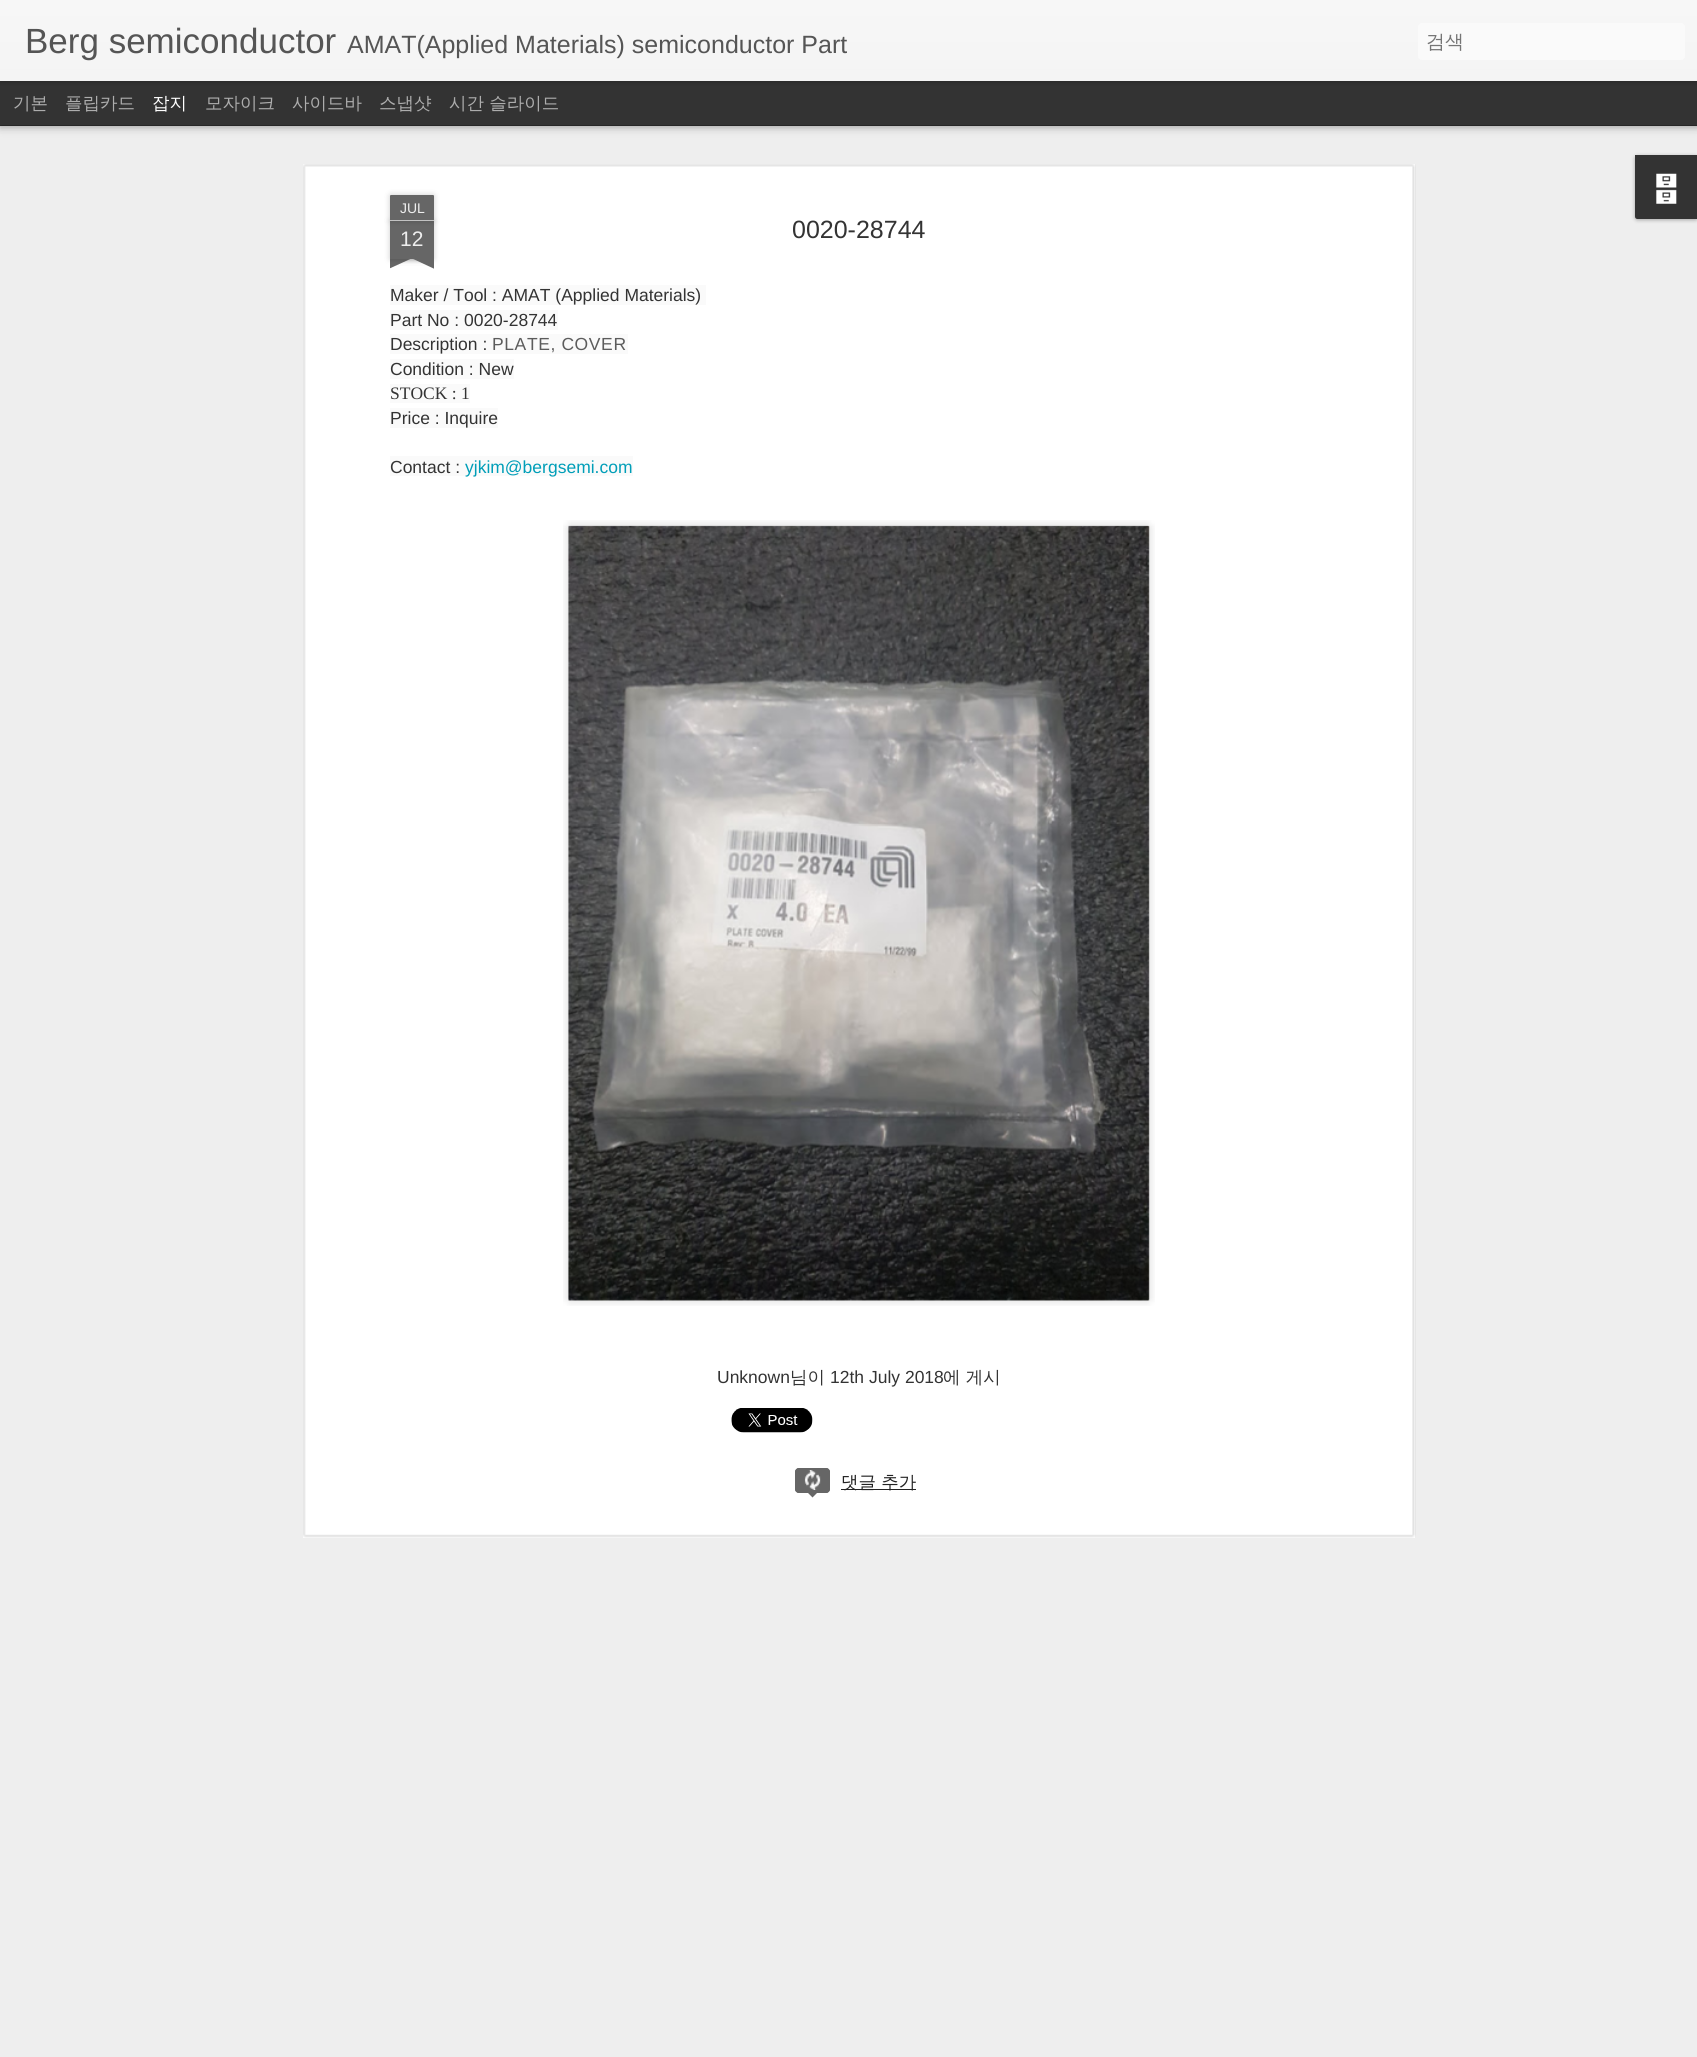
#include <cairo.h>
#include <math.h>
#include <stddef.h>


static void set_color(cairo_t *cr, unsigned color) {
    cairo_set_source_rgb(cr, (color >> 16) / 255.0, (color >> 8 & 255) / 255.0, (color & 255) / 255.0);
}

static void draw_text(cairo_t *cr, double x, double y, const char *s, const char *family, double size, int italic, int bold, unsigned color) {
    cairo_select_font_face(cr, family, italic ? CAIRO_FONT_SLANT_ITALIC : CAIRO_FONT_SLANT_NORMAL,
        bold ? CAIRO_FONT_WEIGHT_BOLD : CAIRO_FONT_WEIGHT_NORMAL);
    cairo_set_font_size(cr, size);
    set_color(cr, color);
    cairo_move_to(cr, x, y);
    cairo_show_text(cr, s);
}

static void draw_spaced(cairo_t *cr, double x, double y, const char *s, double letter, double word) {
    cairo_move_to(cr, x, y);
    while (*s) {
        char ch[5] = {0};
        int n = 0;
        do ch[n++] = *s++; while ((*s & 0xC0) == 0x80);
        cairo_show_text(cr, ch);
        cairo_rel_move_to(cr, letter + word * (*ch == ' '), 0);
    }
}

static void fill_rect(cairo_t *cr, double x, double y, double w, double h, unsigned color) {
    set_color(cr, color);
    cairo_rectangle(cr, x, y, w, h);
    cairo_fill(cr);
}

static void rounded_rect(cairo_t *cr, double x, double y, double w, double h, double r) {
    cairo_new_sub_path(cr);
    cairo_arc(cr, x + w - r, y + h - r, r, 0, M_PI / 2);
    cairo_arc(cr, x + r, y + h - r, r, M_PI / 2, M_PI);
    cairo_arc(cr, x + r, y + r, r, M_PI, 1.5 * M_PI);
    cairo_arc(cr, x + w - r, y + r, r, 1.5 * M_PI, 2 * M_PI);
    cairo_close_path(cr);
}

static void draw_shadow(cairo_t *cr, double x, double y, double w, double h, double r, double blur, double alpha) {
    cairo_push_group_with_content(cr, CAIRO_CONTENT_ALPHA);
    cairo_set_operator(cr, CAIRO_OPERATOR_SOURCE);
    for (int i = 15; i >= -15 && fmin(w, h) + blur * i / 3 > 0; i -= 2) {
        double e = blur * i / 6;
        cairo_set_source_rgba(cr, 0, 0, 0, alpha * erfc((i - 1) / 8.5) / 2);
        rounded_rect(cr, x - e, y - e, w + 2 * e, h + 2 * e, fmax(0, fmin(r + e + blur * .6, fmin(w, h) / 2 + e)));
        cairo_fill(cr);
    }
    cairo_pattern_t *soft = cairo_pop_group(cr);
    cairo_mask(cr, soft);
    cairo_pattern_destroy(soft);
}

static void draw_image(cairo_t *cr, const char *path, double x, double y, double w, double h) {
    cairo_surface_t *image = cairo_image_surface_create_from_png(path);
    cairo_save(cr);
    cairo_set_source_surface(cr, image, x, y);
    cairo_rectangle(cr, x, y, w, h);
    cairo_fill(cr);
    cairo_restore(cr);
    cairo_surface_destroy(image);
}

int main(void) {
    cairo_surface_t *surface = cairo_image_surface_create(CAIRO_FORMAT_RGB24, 1697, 2057);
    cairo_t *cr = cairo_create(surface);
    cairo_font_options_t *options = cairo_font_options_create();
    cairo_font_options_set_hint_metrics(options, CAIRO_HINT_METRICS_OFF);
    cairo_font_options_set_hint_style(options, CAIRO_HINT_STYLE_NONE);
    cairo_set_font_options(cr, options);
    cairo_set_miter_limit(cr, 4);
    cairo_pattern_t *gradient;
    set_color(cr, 0x333333);
    cairo_paint(cr);
    fill_rect(cr, 0, 126, 1697, 1931, 0xEEEEEE);
    set_color(cr, 0x000000);
    draw_shadow(cr, 0, 81, 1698, 44, 0, 5, 0.5);
    fill_rect(cr, 0, 81, 1697, 44, 0x333333);
    set_color(cr, 0x000000);
    draw_shadow(cr, 0, 0, 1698, 81, 0, 3, 0.3);
    gradient = cairo_pattern_create_linear(0, 0, 0, 81);
    cairo_pattern_add_color_stop_rgba(gradient, 0, 0.969, 0.969, 0.969, 1);
    cairo_pattern_add_color_stop_rgba(gradient, 1, 0.957, 0.957, 0.957, 1);
    cairo_set_source(cr, gradient);
    cairo_pattern_destroy(gradient);
    cairo_rectangle(cr, 0, 0, 1697, 81);
    cairo_fill(cr);
    draw_text(cr, 25, 53, "Berg semiconductor", "Liberation Sans", 35, 0, 0, 0x555555);
    draw_text(cr, 347, 53, "AMAT(Applied Materials) semiconductor Part", "Liberation Sans", 25, 0, 0, 0x555555);
    set_color(cr, 0xFAFAFA);
    rounded_rect(cr, 1418, 23, 267, 37, 4);
    cairo_fill(cr);
    draw_text(cr, 1426, 48, "검색", "WenQuanYi Zen Hei Medium", 19, 0, 0, 0x757575);
    draw_text(cr, 13, 109, "기본", "WenQuanYi Zen Hei Medium", 17.5, 0, 0, 0xADADAD);
    draw_text(cr, 65, 109, "플립카드", "WenQuanYi Zen Hei Medium", 17.5, 0, 0, 0xADADAD);
    draw_text(cr, 152, 109, "잡지", "WenQuanYi Zen Hei Medium", 17.5, 0, 0, 0xFFFFFF);
    draw_text(cr, 205, 109, "모자이크", "WenQuanYi Zen Hei Medium", 17.5, 0, 0, 0xADADAD);
    draw_text(cr, 292, 109, "사이드바", "WenQuanYi Zen Hei Medium", 17.5, 0, 0, 0xADADAD);
    draw_text(cr, 379, 109, "스냅샷", "WenQuanYi Zen Hei Medium", 17.5, 0, 0, 0xADADAD);
    draw_text(cr, 449, 109, "시간 슬라이드", "WenQuanYi Zen Hei Medium", 17.5, 0, 0, 0xADADAD);
    set_color(cr, 0x000000);
    draw_shadow(cr, 1635, 156, 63, 64, 2.5, 2, 0.3);
    set_color(cr, 0x333333);
    cairo_new_path(cr);
    cairo_move_to(cr, 1635, 155);
    cairo_line_to(cr, 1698, 155);
    cairo_line_to(cr, 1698, 219);
    cairo_line_to(cr, 1637.5, 219);
    cairo_curve_to(cr, 1636, 219, 1635, 218, 1635, 216.5);
    cairo_close_path(cr);
    cairo_fill(cr);
    draw_image(cr, "assets/img1.png", 1656, 173, 21, 31);
    fill_rect(cr, 303, 164, 1112, 1374, 0xFFFFFF);
    draw_image(cr, "assets/img2.png", 303, 164, 1113, 1374);
    set_color(cr, 0x000000);
    draw_shadow(cr, 390, 221, 44, 38, 0, 3, 0.2);
    fill_rect(cr, 390, 221, 44, 38, 0x666666);
    set_color(cr, 0x000000);
    draw_shadow(cr, 390, 195, 44, 26, 1, 3, 0.2);
    set_color(cr, 0x666666);
    cairo_new_path(cr);
    cairo_move_to(cr, 391, 195);
    cairo_line_to(cr, 433, 195);
    cairo_curve_to(cr, 433.5, 195, 434, 195.5, 434, 196);
    cairo_line_to(cr, 434, 221);
    cairo_line_to(cr, 390, 221);
    cairo_line_to(cr, 390, 196);
    cairo_curve_to(cr, 390, 195.5, 390.5, 195, 391, 195);
    cairo_close_path(cr);
    cairo_fill(cr);
    fill_rect(cr, 390, 220, 44, 1, 0xC2C2C2);
    draw_text(cr, 400, 213, "JUL", "Liberation Sans", 14, 0, 0, 0xEEEEEE);
    draw_text(cr, 400, 246, "12", "Liberation Sans", 21, 0, 0, 0xEEEEEE);
    cairo_save(cr);
    cairo_rectangle(cr, 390, 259, 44, 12);
    cairo_clip(cr);
    set_color(cr, 0x000000);
    draw_shadow(cr, 379, 246, 62, 13, 0, 3, 0.2);
    cairo_restore(cr);
    cairo_save(cr);
    cairo_rectangle(cr, 390, 259, 44, 12);
    cairo_clip(cr);
    set_color(cr, 0x666666);
    cairo_new_path(cr);
    cairo_move_to(cr, 379, 260);
    cairo_line_to(cr, 436, 234);
    cairo_line_to(cr, 441, 245);
    cairo_line_to(cr, 384, 271);
    cairo_close_path(cr);
    cairo_fill(cr);
    cairo_restore(cr);
    cairo_save(cr);
    cairo_rectangle(cr, 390, 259, 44, 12);
    cairo_clip(cr);
    set_color(cr, 0x000000);
    draw_shadow(cr, 383, 246, 62, 13, 0, 3, 0.2);
    cairo_restore(cr);
    cairo_save(cr);
    cairo_rectangle(cr, 390, 259, 44, 12);
    cairo_clip(cr);
    set_color(cr, 0x666666);
    cairo_new_path(cr);
    cairo_move_to(cr, 388, 234);
    cairo_line_to(cr, 445, 260);
    cairo_line_to(cr, 439, 271);
    cairo_line_to(cr, 383, 245);
    cairo_close_path(cr);
    cairo_fill(cr);
    cairo_restore(cr);
    draw_text(cr, 792, 238, "0020-28744", "Liberation Sans", 25, 0, 0, 0x333333);
    fill_rect(cr, 390, 285, 316, 20, 0xFAFAFA);
    draw_text(cr, 390, 301, "Maker / Tool : AMAT (Applied Materials)", "Liberation Sans", 17.5, 0, 0, 0x333333);
    fill_rect(cr, 390, 310, 168, 20, 0xFAFAFA);
    draw_text(cr, 390, 326, "Part No : 0020-28744", "Liberation Sans", 17.5, 0, 0, 0x333333);
    fill_rect(cr, 390, 334, 238, 20, 0xFAFAFA);
    draw_text(cr, 390, 350, "Description :", "Liberation Sans", 17.5, 0, 0, 0x333333);
    set_color(cr, 0x5C5C5C);
    draw_spaced(cr, 492, 350, "PLATE, COVER", 0.6, 0);
    fill_rect(cr, 390, 359, 124, 20, 0xFAFAFA);
    draw_text(cr, 390, 375, "Condition : New", "Liberation Sans", 17.5, 0, 0, 0x333333);
    fill_rect(cr, 390, 384, 80, 19, 0xFAFAFA);
    draw_text(cr, 390, 399, "STOCK : 1", "Liberation Serif", 17.5, 0, 0, 0x333333);
    fill_rect(cr, 390, 408, 108, 20, 0xFAFAFA);
    draw_text(cr, 390, 424, "Price : Inquire", "Liberation Sans", 17.5, 0, 0, 0x333333);
    fill_rect(cr, 390, 456, 243, 20, 0xFAFAFA);
    draw_text(cr, 390, 473, "Contact :", "Liberation Sans", 17.5, 0, 0, 0x333333);
    draw_text(cr, 465, 473, "yjkim@bergsemi.com", "Liberation Sans", 17.5, 0, 0, 0x009EB8);
    draw_image(cr, "assets/img3.png", 563, 520, 592, 786);
    draw_image(cr, "assets/img4.png", 568, 525, 582, 776);
    draw_text(cr, 717, 1383, "Unknown", "Liberation Sans", 17.5, 0, 0, 0x333333);
    draw_text(cr, 790, 1383, "님이", "WenQuanYi Zen Hei Medium", 17.5, 0, 0, 0x333333);
    draw_text(cr, 830, 1383, "12th July 2018", "Liberation Sans", 17.5, 0, 0, 0x333333);
    draw_text(cr, 943, 1383, "에 게시", "WenQuanYi Zen Hei Medium", 17.5, 0, 0, 0x333333);
    draw_image(cr, "assets/img5.png", 731, 1408, 82, 25);
    set_color(cr, 0x666666);
    rounded_rect(cr, 795, 1468, 35, 25, 4);
    cairo_fill(cr);
    draw_image(cr, "assets/img6.png", 804, 1470, 17, 20);
    rounded_rect(cr, 795.5, 1468.5, 34, 24, 3.5);
    cairo_set_line_width(cr, 1);
    cairo_stroke(cr);
    cairo_new_path(cr);
    cairo_move_to(cr, 806, 1491);
    cairo_line_to(cr, 819, 1491);
    cairo_line_to(cr, 812.5, 1497.5);
    cairo_close_path(cr);
    cairo_fill(cr);
    fill_rect(cr, 841, 1489, 75, 1, 0x222222);
    draw_text(cr, 841, 1488, "댓글 추가", "WenQuanYi Zen Hei Medium", 17.5, 0, 0, 0x222222);
    cairo_surface_write_to_png(surface, "output.png");
    cairo_font_options_destroy(options);
    cairo_destroy(cr);
    cairo_surface_destroy(surface);
    return 0;
}
